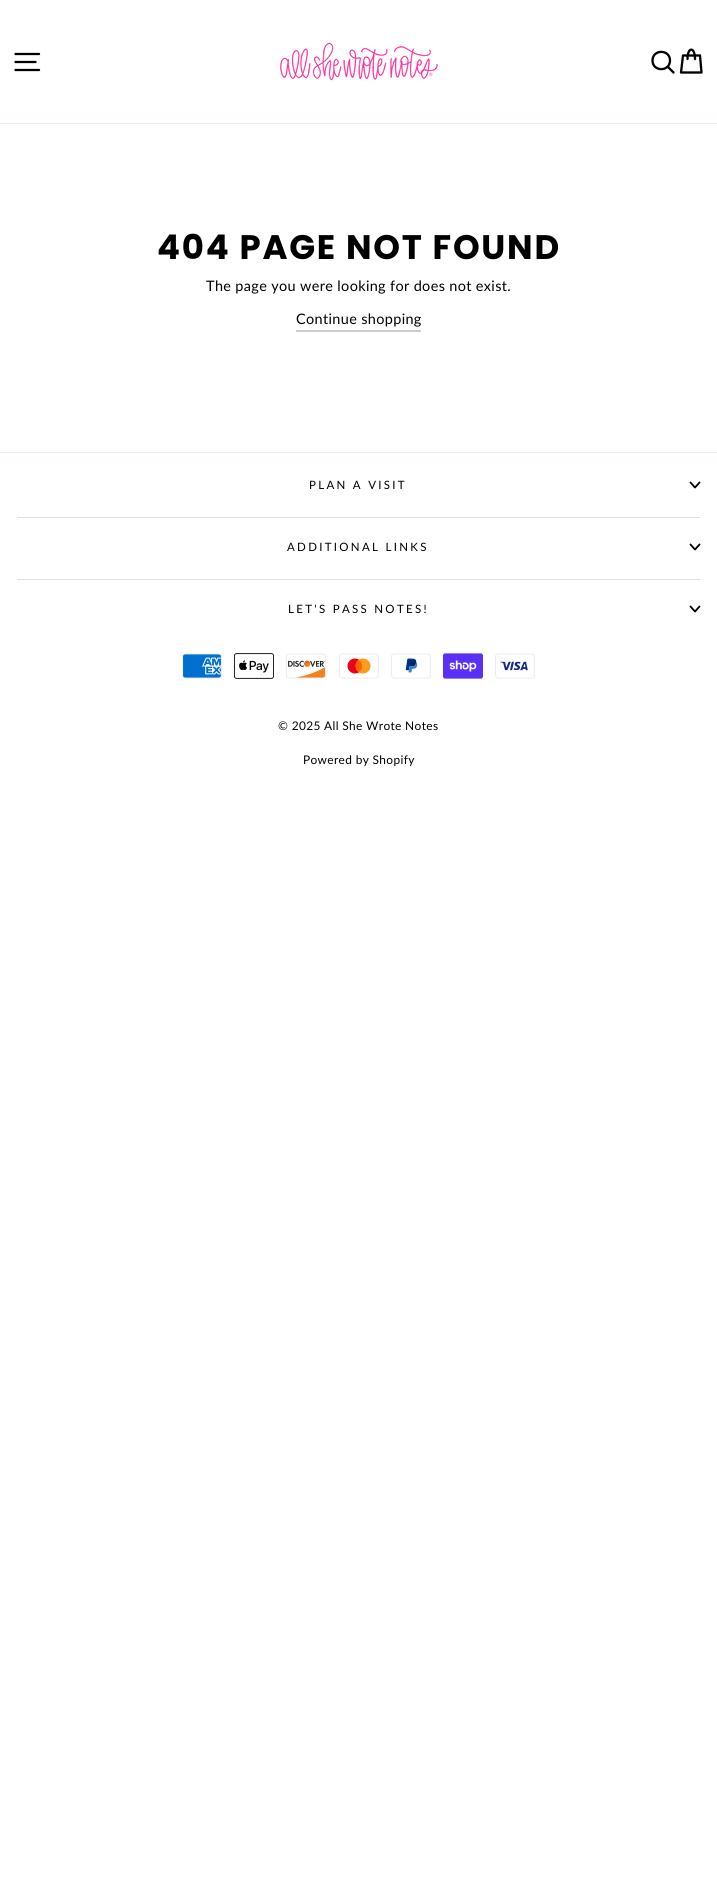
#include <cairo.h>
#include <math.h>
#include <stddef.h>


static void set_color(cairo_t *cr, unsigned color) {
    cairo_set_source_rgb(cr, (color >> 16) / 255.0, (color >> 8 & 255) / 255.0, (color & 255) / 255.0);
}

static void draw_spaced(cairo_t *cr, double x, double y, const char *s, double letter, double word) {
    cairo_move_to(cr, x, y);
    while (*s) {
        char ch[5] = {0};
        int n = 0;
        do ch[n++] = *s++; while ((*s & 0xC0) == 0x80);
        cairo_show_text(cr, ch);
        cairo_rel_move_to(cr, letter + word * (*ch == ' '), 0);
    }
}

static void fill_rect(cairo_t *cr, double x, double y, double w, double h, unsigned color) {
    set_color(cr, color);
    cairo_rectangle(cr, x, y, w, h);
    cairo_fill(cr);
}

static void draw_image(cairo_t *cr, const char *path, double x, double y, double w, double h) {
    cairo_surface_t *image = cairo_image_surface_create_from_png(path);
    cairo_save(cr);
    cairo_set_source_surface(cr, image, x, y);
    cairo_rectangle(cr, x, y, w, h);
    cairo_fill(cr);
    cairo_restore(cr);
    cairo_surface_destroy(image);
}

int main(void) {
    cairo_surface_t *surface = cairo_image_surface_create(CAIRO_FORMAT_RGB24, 717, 1903);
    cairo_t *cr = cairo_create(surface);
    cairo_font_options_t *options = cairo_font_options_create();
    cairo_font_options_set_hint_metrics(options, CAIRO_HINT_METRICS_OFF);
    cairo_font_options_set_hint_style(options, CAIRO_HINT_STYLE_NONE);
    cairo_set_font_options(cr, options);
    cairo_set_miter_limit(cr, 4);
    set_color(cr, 0xFFFFFF);
    cairo_paint(cr);
    fill_rect(cr, 0, 123, 717, 1, 0xFEEAF3);
    cairo_new_path(cr);
    cairo_move_to(cr, 15.5, 54);
    cairo_line_to(cr, 39, 54);
    cairo_move_to(cr, 15.5, 62);
    cairo_line_to(cr, 35.5, 62);
    cairo_move_to(cr, 15.5, 70);
    cairo_line_to(cr, 39, 70);
    set_color(cr, 0x000000);
    cairo_set_line_width(cr, 2.3);
    cairo_set_line_cap(cr, CAIRO_LINE_CAP_ROUND);
    cairo_set_line_join(cr, CAIRO_LINE_JOIN_ROUND);
    cairo_stroke(cr);
    draw_image(cr, "assets/img1.png", 280, 42, 158, 39);
    cairo_new_path(cr);
    cairo_move_to(cr, 670, 60.5);
    cairo_curve_to(cr, 670, 72, 652.5, 72, 652.5, 60.5);
    cairo_curve_to(cr, 652.5, 49, 670, 49, 670, 60.5);
    cairo_close_path(cr);
    cairo_move_to(cr, 673.5, 72.5);
    cairo_line_to(cr, 667.5, 66.5);
    cairo_move_to(cr, 687.5, 59);
    cairo_curve_to(cr, 687.5, 46.5, 695, 46.5, 695, 59);
    cairo_move_to(cr, 683, 55.5);
    cairo_line_to(cr, 700, 55.5);
    cairo_line_to(cr, 701.5, 72.5);
    cairo_line_to(cr, 681, 72.5);
    cairo_close_path(cr);
    cairo_stroke(cr);
    cairo_select_font_face(cr, "Poppins", CAIRO_FONT_SLANT_NORMAL, CAIRO_FONT_WEIGHT_BOLD);
    cairo_set_font_size(cr, 34);
    draw_spaced(cr, 157, 259, "404 PAGE NOT FOUND", 1.75, 0);
    cairo_select_font_face(cr, "Lato", CAIRO_FONT_SLANT_NORMAL, CAIRO_FONT_WEIGHT_NORMAL);
    cairo_set_font_size(cr, 14.45);
    draw_spaced(cr, 206, 291, "The page you were looking for does not exist.", 0.35, 0);
    fill_rect(cr, 296, 330, 125, 2, 0xCCCCCC);
    set_color(cr, 0x000000);
    draw_spaced(cr, 296, 324, "Continue shopping", 0.35, 0);
    fill_rect(cr, 0, 452, 717, 1, 0xFEEAF3);
    cairo_set_font_size(cr, 11.5);
    set_color(cr, 0x000000);
    draw_spaced(cr, 309, 489, "PLAN A VISIT", 2.3, 0);
    cairo_new_path(cr);
    cairo_move_to(cr, 690.5, 482.5);
    cairo_line_to(cr, 695, 487.5);
    cairo_line_to(cr, 699.5, 482.5);
    cairo_set_line_width(cr, 1.8);
    cairo_stroke(cr);
    fill_rect(cr, 17, 517, 683, 1, 0xE0E0E0);
    set_color(cr, 0x000000);
    draw_spaced(cr, 287, 551, "ADDITIONAL LINKS", 2.3, 0);
    cairo_new_path(cr);
    cairo_move_to(cr, 690.5, 544.5);
    cairo_line_to(cr, 695, 549.5);
    cairo_line_to(cr, 699.5, 544.5);
    cairo_stroke(cr);
    fill_rect(cr, 17, 579, 683, 1, 0xE0E0E0);
    set_color(cr, 0x000000);
    draw_spaced(cr, 288, 613, "LET'S PASS NOTES!", 2.3, 0);
    cairo_new_path(cr);
    cairo_move_to(cr, 690.5, 606.5);
    cairo_line_to(cr, 695, 611.5);
    cairo_line_to(cr, 699.5, 606.5);
    cairo_stroke(cr);
    draw_image(cr, "assets/img2.png", 182, 653, 40, 26);
    draw_image(cr, "assets/img3.png", 234, 653, 40, 26);
    draw_image(cr, "assets/img4.png", 286, 653, 40, 26);
    draw_image(cr, "assets/img5.png", 339, 653, 40, 26);
    draw_image(cr, "assets/img6.png", 391, 653, 40, 26);
    draw_image(cr, "assets/img7.png", 443, 653, 40, 26);
    draw_image(cr, "assets/img8.png", 495, 653, 40, 26);
    cairo_set_font_size(cr, 11.9);
    draw_spaced(cr, 278, 730, "© 2025 All She Wrote Notes", 0.35, 0);
    draw_spaced(cr, 303, 764, "Powered by Shopify", 0.35, 0);
    cairo_surface_write_to_png(surface, "output.png");
    cairo_font_options_destroy(options);
    cairo_destroy(cr);
    cairo_surface_destroy(surface);
    return 0;
}
